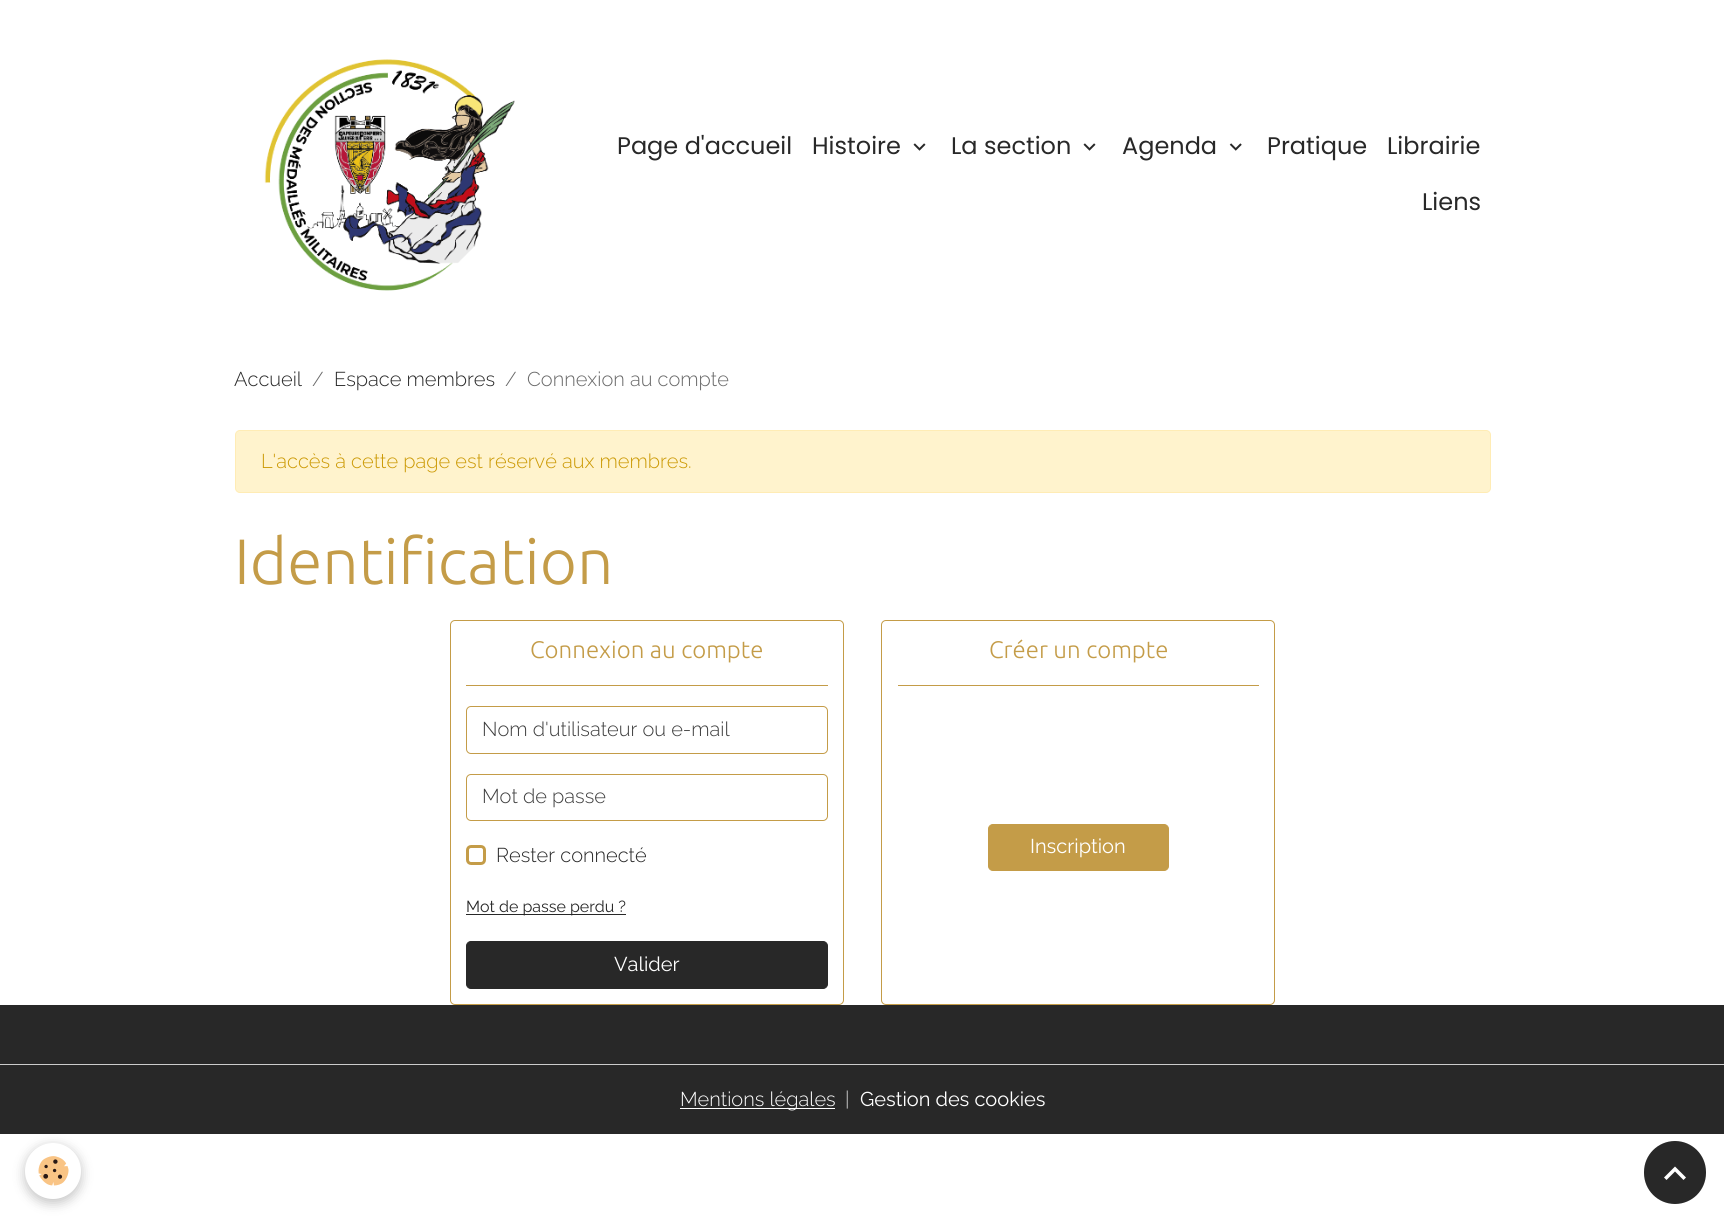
#include <cairo.h>
#include <math.h>
#include <stddef.h>


static void set_color(cairo_t *cr, unsigned color) {
    cairo_set_source_rgb(cr, (color >> 16) / 255.0, (color >> 8 & 255) / 255.0, (color & 255) / 255.0);
}

static void draw_text(cairo_t *cr, double x, double y, const char *s, const char *family, double size, int italic, int bold, unsigned color) {
    cairo_select_font_face(cr, family, italic ? CAIRO_FONT_SLANT_ITALIC : CAIRO_FONT_SLANT_NORMAL,
        bold ? CAIRO_FONT_WEIGHT_BOLD : CAIRO_FONT_WEIGHT_NORMAL);
    cairo_set_font_size(cr, size);
    set_color(cr, color);
    cairo_move_to(cr, x, y);
    cairo_show_text(cr, s);
}

static void fill_rect(cairo_t *cr, double x, double y, double w, double h, unsigned color) {
    set_color(cr, color);
    cairo_rectangle(cr, x, y, w, h);
    cairo_fill(cr);
}

static void rounded_rect(cairo_t *cr, double x, double y, double w, double h, double r) {
    cairo_new_sub_path(cr);
    cairo_arc(cr, x + w - r, y + h - r, r, 0, M_PI / 2);
    cairo_arc(cr, x + r, y + h - r, r, M_PI / 2, M_PI);
    cairo_arc(cr, x + r, y + r, r, M_PI, 1.5 * M_PI);
    cairo_arc(cr, x + w - r, y + r, r, 1.5 * M_PI, 2 * M_PI);
    cairo_close_path(cr);
}

static void draw_shadow(cairo_t *cr, double x, double y, double w, double h, double r, double blur, double alpha) {
    cairo_push_group_with_content(cr, CAIRO_CONTENT_ALPHA);
    cairo_set_operator(cr, CAIRO_OPERATOR_SOURCE);
    for (int i = 15; i >= -15 && fmin(w, h) + blur * i / 3 > 0; i -= 2) {
        double e = blur * i / 6;
        cairo_set_source_rgba(cr, 0, 0, 0, alpha * erfc((i - 1) / 8.5) / 2);
        rounded_rect(cr, x - e, y - e, w + 2 * e, h + 2 * e, fmax(0, fmin(r + e + blur * .6, fmin(w, h) / 2 + e)));
        cairo_fill(cr);
    }
    cairo_pattern_t *soft = cairo_pop_group(cr);
    cairo_mask(cr, soft);
    cairo_pattern_destroy(soft);
}

static void draw_image(cairo_t *cr, const char *path, double x, double y, double w, double h) {
    cairo_surface_t *image = cairo_image_surface_create_from_png(path);
    cairo_save(cr);
    cairo_set_source_surface(cr, image, x, y);
    cairo_rectangle(cr, x, y, w, h);
    cairo_fill(cr);
    cairo_restore(cr);
    cairo_surface_destroy(image);
}

int main(void) {
    cairo_surface_t *surface = cairo_image_surface_create(CAIRO_FORMAT_RGB24, 1724, 1222);
    cairo_t *cr = cairo_create(surface);
    cairo_font_options_t *options = cairo_font_options_create();
    cairo_font_options_set_hint_metrics(options, CAIRO_HINT_METRICS_OFF);
    cairo_font_options_set_hint_style(options, CAIRO_HINT_STYLE_NONE);
    cairo_set_font_options(cr, options);
    cairo_set_miter_limit(cr, 4);
    set_color(cr, 0xFFFFFF);
    cairo_paint(cr);
    draw_image(cr, "assets/img1.png", 264, 59, 251, 232);
    draw_text(cr, 617, 154, "Page d'accueil", "Poppins", 24, 0, 0, 0x282828);
    draw_text(cr, 812, 154, "Histoire", "Poppins", 24, 0, 0, 0x282828);
    draw_image(cr, "assets/img2.png", 913, 143, 13, 8);
    draw_text(cr, 951, 154, "La section", "Poppins", 24, 0, 0, 0x282828);
    draw_image(cr, "assets/img2.png", 1083, 143, 13, 8);
    draw_text(cr, 1122, 154, "Agenda", "Poppins", 24, 0, 0, 0x282828);
    draw_image(cr, "assets/img3.png", 1229, 143, 13, 8);
    draw_text(cr, 1267, 154, "Pratique", "Poppins", 24, 0, 0, 0x282828);
    draw_text(cr, 1387, 154, "Librairie", "Poppins", 24, 0, 0, 0x282828);
    draw_text(cr, 1422, 210, "Liens", "Poppins", 24, 0, 0, 0x282828);
    draw_text(cr, 234, 386, "Accueil", "Raleway Light", 20, 0, 0, 0x282828);
    draw_text(cr, 312, 386, "/", "Raleway Light", 20, 0, 0, 0x696969);
    draw_text(cr, 334, 386, "Espace membres", "Raleway Light", 20, 0, 0, 0x282828);
    draw_text(cr, 505, 386, "/", "Raleway Light", 20, 0, 0, 0x696969);
    draw_text(cr, 527, 386, "Connexion au compte", "Raleway Light", 20, 0, 0, 0x696969);
    set_color(cr, 0xFFF3CD);
    rounded_rect(cr, 235.5, 430.5, 1255, 62, 4.5);
    cairo_fill_preserve(cr);
    set_color(cr, 0xFFECB5);
    cairo_set_line_width(cr, 1);
    cairo_stroke(cr);
    draw_text(cr, 261, 468, "L'accès à cette page est réservé aux membres.", "Raleway Light", 20, 0, 0, 0xCC9A06);
    draw_text(cr, 234, 584, "Identification", "Ubuntu Light", 64, 0, 0, 0xC49C48);
    rounded_rect(cr, 450.5, 620.5, 393, 384, 4.5);
    cairo_stroke(cr);
    fill_rect(cr, 466, 685, 362, 1, 0xC49C48);
    draw_text(cr, 530, 658, "Connexion au compte", "Ubuntu Light", 24, 0, 0, 0xC49C48);
    rounded_rect(cr, 466.5, 706.5, 361, 47, 4.5);
    cairo_stroke(cr);
    draw_text(cr, 482, 736, "Nom d'utilisateur ou e-mail", "Raleway Light", 20, 0, 0, 0x3E3E3E);
    rounded_rect(cr, 466.5, 774.5, 361, 46, 4.5);
    set_color(cr, 0xC49C48);
    cairo_stroke(cr);
    draw_text(cr, 482, 803, "Mot de passe", "Raleway Light", 20, 0, 0, 0x3E3E3E);
    rounded_rect(cr, 467.5, 846.5, 17, 17, 3.5);
    set_color(cr, 0xC49C48);
    cairo_set_line_width(cr, 3);
    cairo_stroke(cr);
    draw_text(cr, 496, 862, "Rester connecté", "Raleway Light", 20, 0, 0, 0x282828);
    fill_rect(cr, 466, 914, 160, 1, 0x282828);
    draw_text(cr, 466, 912, "Mot de passe perdu ?", "Raleway", 16, 0, 0, 0x282828);
    rounded_rect(cr, 466.5, 941.5, 361, 47, 4.5);
    cairo_fill_preserve(cr);
    cairo_set_line_width(cr, 1);
    cairo_stroke(cr);
    draw_text(cr, 614, 971, "Valider", "Raleway", 20, 0, 0, 0xFFFFFF);
    rounded_rect(cr, 881.5, 620.5, 393, 384, 4.5);
    set_color(cr, 0xC49C48);
    cairo_stroke(cr);
    fill_rect(cr, 898, 685, 361, 1, 0xC49C48);
    draw_text(cr, 989, 658, "Créer un compte", "Ubuntu Light", 24, 0, 0, 0xC49C48);
    rounded_rect(cr, 988.5, 824.5, 180, 46, 4.5);
    cairo_fill_preserve(cr);
    cairo_stroke(cr);
    draw_text(cr, 1030, 853, "Inscription", "Raleway", 20, 0, 0, 0xFFFFFF);
    fill_rect(cr, 0, 1005, 1724, 129, 0x282828);
    fill_rect(cr, 0, 1064, 1724, 1, 0xCCCCCC);
    fill_rect(cr, 680, 1108, 155, 1, 0xFFFFFF);
    draw_text(cr, 680, 1106, "Mentions légales", "Raleway Light", 20, 0, 0, 0xFFFFFF);
    draw_text(cr, 845, 1106, "|", "Raleway Light", 20, 0, 0, 0xD4D4D4);
    draw_text(cr, 860, 1106, "Gestion des cookies", "Raleway", 20, 0, 0, 0xFFFFFF);
    set_color(cr, 0x000000);
    draw_shadow(cr, 25, 1146, 56, 57, 28, 6, 0.24);
    set_color(cr, 0xFFFFFF);
    cairo_arc(cr, 53, 1171, 28, 0, 2 * M_PI);
    cairo_fill(cr);
    draw_image(cr, "assets/img4.png", 38, 1156, 31, 30);
    set_color(cr, 0x282828);
    rounded_rect(cr, 1644, 1141, 62, 63, 31);
    cairo_fill(cr);
    set_color(cr, 0xFFFFFF);
    cairo_new_path(cr);
    cairo_move_to(cr, 1675, 1166.5);
    cairo_line_to(cr, 1686, 1177.5);
    cairo_line_to(cr, 1683.5, 1180);
    cairo_line_to(cr, 1675, 1171.5);
    cairo_line_to(cr, 1666.5, 1180);
    cairo_line_to(cr, 1664, 1177.5);
    cairo_close_path(cr);
    cairo_fill(cr);
    cairo_surface_write_to_png(surface, "output.png");
    cairo_font_options_destroy(options);
    cairo_destroy(cr);
    cairo_surface_destroy(surface);
    return 0;
}
